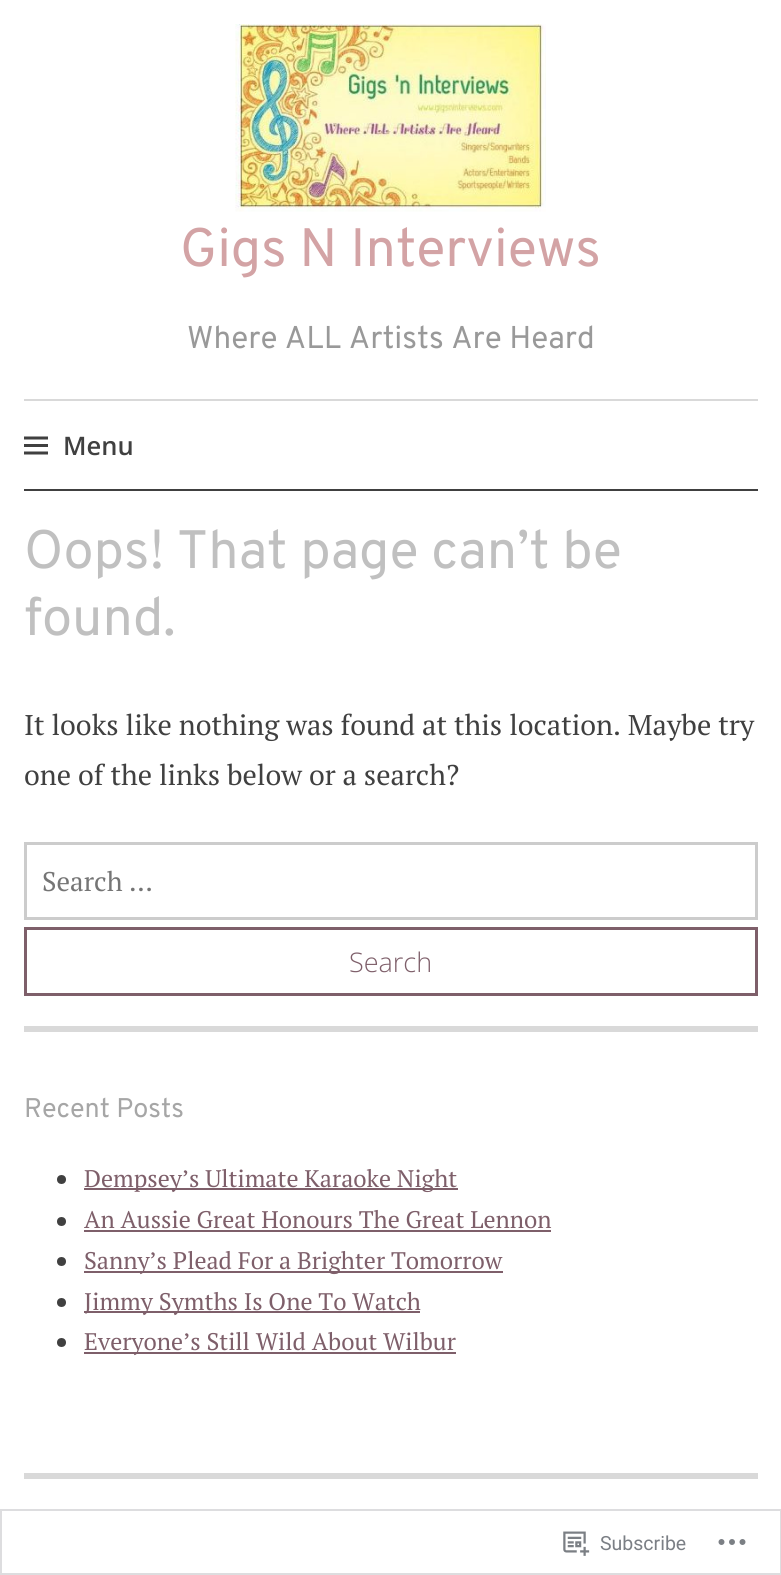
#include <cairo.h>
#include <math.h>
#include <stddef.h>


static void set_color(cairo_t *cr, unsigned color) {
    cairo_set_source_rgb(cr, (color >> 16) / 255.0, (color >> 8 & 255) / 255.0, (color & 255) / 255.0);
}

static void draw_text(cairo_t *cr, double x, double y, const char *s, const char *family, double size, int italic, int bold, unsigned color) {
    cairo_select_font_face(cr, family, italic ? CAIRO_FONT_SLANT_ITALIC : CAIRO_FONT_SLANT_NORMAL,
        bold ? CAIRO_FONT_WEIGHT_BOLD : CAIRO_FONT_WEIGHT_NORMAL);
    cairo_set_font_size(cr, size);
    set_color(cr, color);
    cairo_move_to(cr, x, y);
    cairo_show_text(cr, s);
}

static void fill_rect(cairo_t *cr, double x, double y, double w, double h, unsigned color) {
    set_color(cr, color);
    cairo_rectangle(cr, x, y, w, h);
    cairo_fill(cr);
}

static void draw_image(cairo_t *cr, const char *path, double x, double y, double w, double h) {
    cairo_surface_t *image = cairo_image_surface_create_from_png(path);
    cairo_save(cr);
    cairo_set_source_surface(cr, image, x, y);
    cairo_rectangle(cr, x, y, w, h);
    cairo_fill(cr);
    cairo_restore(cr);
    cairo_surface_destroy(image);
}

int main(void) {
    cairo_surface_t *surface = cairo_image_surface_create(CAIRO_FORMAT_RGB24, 781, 1575);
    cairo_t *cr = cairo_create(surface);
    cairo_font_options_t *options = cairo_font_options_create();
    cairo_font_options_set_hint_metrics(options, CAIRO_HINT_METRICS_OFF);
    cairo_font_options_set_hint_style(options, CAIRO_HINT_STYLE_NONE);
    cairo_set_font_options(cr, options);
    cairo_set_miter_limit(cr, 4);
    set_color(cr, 0xFFFFFF);
    cairo_paint(cr);
    draw_image(cr, "assets/img1.png", 235, 24, 311, 188);
    draw_text(cr, 180, 266, "Gigs N Interviews", "Overpass", 54, 0, 0, 0xD3A3A5);
    draw_text(cr, 187, 348, "Where ALL Artists Are Heard", "Overpass", 31.5, 0, 0, 0x999999);
    fill_rect(cr, 24, 399, 734, 2, 0xD9D9D9);
    fill_rect(cr, 24, 489, 734, 2, 0x404040);
    draw_image(cr, "assets/img2.png", 24, 436, 24, 19);
    draw_text(cr, 63, 455, "Menu", "Open Sans SemiBold", 25.5, 0, 0, 0x404040);
    draw_text(cr, 24, 568, "Oops! That page can’t be", "Overpass", 54, 0, 0, 0xC0C0C0);
    draw_text(cr, 24, 635, "found.", "Overpass", 54, 0, 0, 0xC0C0C0);
    draw_text(cr, 24, 735, "It looks like nothing was found at this location. Maybe try", "PT Serif", 28.5, 0, 0, 0x404040);
    draw_text(cr, 24, 785, "one of the links below or a search?", "PT Serif", 28.5, 0, 0, 0x404040);
    cairo_rectangle(cr, 25.5, 843.5, 731, 75);
    set_color(cr, 0xCCCCCC);
    cairo_set_line_width(cr, 3);
    cairo_stroke(cr);
    draw_text(cr, 42, 891, "Search …", "PT Serif", 27, 0, 0, 0x757575);
    cairo_rectangle(cr, 25.5, 928.5, 731, 66);
    set_color(cr, 0x7E5F6A);
    cairo_stroke(cr);
    draw_text(cr, 349, 972, "Search", "Open Sans Light", 27, 0, 0, 0x7E5F6A);
    fill_rect(cr, 24, 1026, 734, 6, 0xD9D9D9);
    draw_text(cr, 24, 1117, "Recent Posts", "Overpass", 27, 0, 0, 0xA6A6A6);
    set_color(cr, 0x404040);
    cairo_new_path(cr);
    cairo_arc(cr, 61.5, 1179.5, 4.5, 0, 2 * M_PI);
    cairo_fill(cr);
    fill_rect(cr, 84, 1188, 374, 2, 0x7E5F6A);
    draw_text(cr, 84, 1187, "Dempsey’s Ultimate Karaoke Night", "PT Serif", 24, 0, 0, 0x7E5F6A);
    set_color(cr, 0x404040);
    cairo_new_path(cr);
    cairo_arc(cr, 61.5, 1221.5, 4.5, 0, 2 * M_PI);
    cairo_fill(cr);
    draw_text(cr, 84, 1228, "An Aussie Great Honours The Great Lennon", "PT Serif", 24, 0, 0, 0x7E5F6A);
    fill_rect(cr, 84, 1230, 467, 2, 0x7E5F6A);
    set_color(cr, 0x404040);
    cairo_new_path(cr);
    cairo_arc(cr, 61.5, 1261.5, 4.5, 0, 2 * M_PI);
    cairo_fill(cr);
    fill_rect(cr, 84, 1271, 419, 2, 0x7E5F6A);
    draw_text(cr, 84, 1269, "Sanny’s Plead For a Brighter Tomorrow", "PT Serif", 24, 0, 0, 0x7E5F6A);
    set_color(cr, 0x404040);
    cairo_new_path(cr);
    cairo_arc(cr, 61.5, 1302.5, 4.5, 0, 2 * M_PI);
    cairo_fill(cr);
    fill_rect(cr, 84, 1311, 336, 2, 0x7E5F6A);
    draw_text(cr, 84, 1310, "Jimmy Symths Is One To Watch", "PT Serif", 24, 0, 0, 0x7E5F6A);
    set_color(cr, 0x404040);
    cairo_new_path(cr);
    cairo_arc(cr, 61.5, 1342.5, 4.5, 0, 2 * M_PI);
    cairo_fill(cr);
    fill_rect(cr, 84, 1352, 372, 2, 0x7E5F6A);
    draw_text(cr, 84, 1350, "Everyone’s Still Wild About Wilbur", "PT Serif", 24, 0, 0, 0x7E5F6A);
    fill_rect(cr, 24, 1473, 734, 6, 0xD9D9D9);
    cairo_rectangle(cr, 1, 1510, 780, 64);
    set_color(cr, 0xDDDDDF);
    cairo_set_line_width(cr, 2);
    cairo_stroke(cr);
    draw_image(cr, "assets/img3.png", 563, 1531, 27, 25);
    draw_text(cr, 600, 1550, "Subscribe", "Roboto", 19.5, 0, 0, 0x7B7F85);
    draw_image(cr, "assets/img4.png", 718, 1539, 28, 6);
    cairo_surface_write_to_png(surface, "output.png");
    cairo_font_options_destroy(options);
    cairo_destroy(cr);
    cairo_surface_destroy(surface);
    return 0;
}
